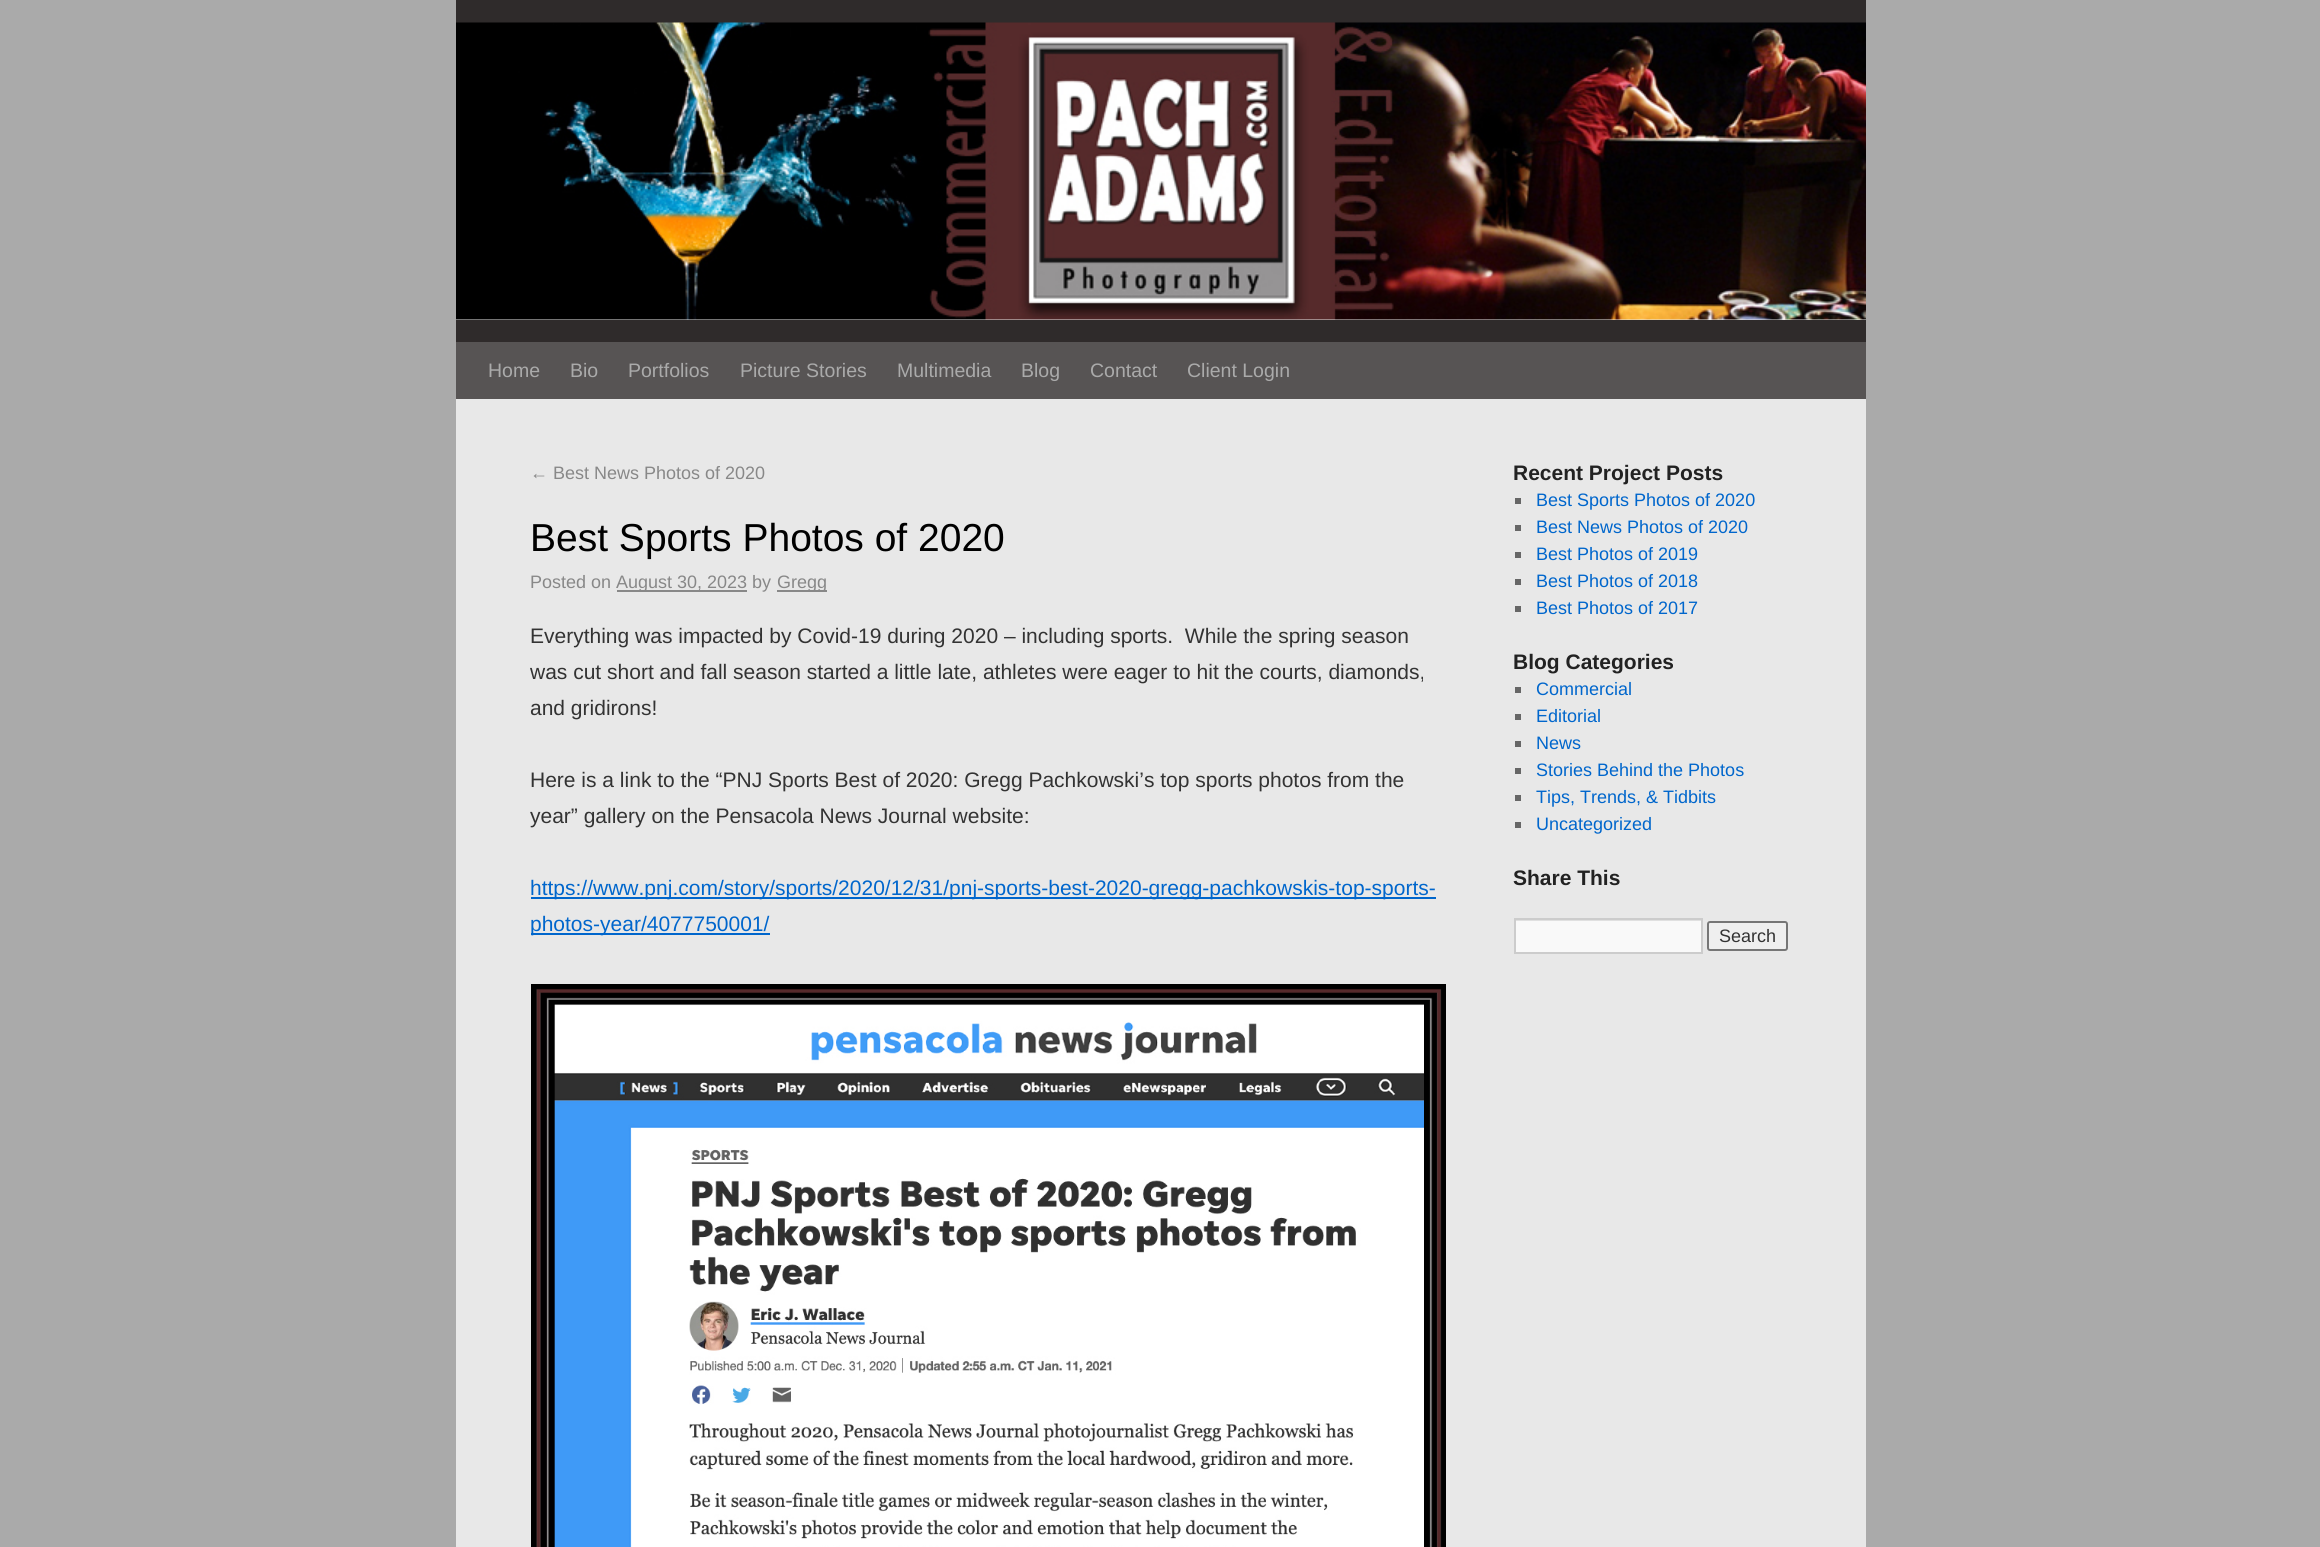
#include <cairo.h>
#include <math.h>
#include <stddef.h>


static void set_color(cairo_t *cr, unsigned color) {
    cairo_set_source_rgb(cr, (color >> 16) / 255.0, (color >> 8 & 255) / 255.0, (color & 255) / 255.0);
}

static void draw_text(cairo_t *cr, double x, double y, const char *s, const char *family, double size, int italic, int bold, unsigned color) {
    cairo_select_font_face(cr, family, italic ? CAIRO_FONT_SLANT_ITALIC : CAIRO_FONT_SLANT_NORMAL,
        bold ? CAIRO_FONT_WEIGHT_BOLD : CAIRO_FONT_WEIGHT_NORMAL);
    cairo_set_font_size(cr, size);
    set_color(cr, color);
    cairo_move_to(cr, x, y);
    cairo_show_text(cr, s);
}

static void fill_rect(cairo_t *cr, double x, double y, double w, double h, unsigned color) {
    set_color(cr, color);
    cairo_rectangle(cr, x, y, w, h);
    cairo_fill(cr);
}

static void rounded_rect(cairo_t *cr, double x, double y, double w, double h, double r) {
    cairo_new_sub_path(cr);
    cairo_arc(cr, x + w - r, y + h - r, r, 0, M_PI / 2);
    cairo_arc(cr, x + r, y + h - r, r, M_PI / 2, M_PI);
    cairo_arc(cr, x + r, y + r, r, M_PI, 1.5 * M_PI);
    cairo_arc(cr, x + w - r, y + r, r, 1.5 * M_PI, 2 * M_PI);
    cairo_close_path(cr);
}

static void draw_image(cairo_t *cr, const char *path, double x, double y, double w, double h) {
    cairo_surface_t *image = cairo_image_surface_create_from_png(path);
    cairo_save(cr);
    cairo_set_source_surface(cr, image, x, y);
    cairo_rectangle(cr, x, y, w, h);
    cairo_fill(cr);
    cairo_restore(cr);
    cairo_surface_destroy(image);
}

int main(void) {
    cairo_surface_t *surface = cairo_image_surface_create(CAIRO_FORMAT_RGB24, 2320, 1547);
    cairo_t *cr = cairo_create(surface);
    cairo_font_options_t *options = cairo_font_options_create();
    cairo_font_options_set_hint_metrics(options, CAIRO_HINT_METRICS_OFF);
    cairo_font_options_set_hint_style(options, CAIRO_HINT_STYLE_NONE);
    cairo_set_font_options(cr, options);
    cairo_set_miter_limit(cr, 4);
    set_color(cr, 0xAAAAAA);
    cairo_paint(cr);
    fill_rect(cr, 456, 319, 1410, 1228, 0xE8E8E8);
    fill_rect(cr, 456, 0, 1410, 23, 0x2F2B2B);
    fill_rect(cr, 456, 320, 1410, 22, 0x2F2B2B);
    draw_image(cr, "assets/img1.png", 456, 22, 1410, 298);
    fill_rect(cr, 456, 342, 1410, 57, 0x575454);
    draw_text(cr, 488, 377, "Home", "Liberation Sans", 19.5, 0, 0, 0xAAAAAA);
    draw_text(cr, 570, 377, "Bio", "Liberation Sans", 19.5, 0, 0, 0xAAAAAA);
    draw_text(cr, 628, 377, "Portfolios", "Liberation Sans", 19.5, 0, 0, 0xAAAAAA);
    draw_text(cr, 740, 377, "Picture Stories", "Liberation Sans", 19.5, 0, 0, 0xAAAAAA);
    draw_text(cr, 897, 377, "Multimedia", "Liberation Sans", 19.5, 0, 0, 0xAAAAAA);
    draw_text(cr, 1021, 377, "Blog", "Liberation Sans", 19.5, 0, 0, 0xAAAAAA);
    draw_text(cr, 1090, 377, "Contact", "Liberation Sans", 19.5, 0, 0, 0xAAAAAA);
    draw_text(cr, 1187, 377, "Client Login", "Liberation Sans", 19.5, 0, 0, 0xAAAAAA);
    draw_text(cr, 530, 479, "← Best News Photos of 2020", "Liberation Sans", 18, 0, 0, 0x888888);
    draw_text(cr, 530, 551, "Best Sports Photos of 2020", "Liberation Sans", 39, 0, 0, 0x000000);
    draw_text(cr, 530, 588, "Posted on", "Liberation Sans", 18, 0, 0, 0x888888);
    fill_rect(cr, 617, 590, 130, 2, 0x888888);
    draw_text(cr, 616, 588, "August 30, 2023 by", "Liberation Sans", 18, 0, 0, 0x888888);
    fill_rect(cr, 777, 590, 50, 2, 0x888888);
    draw_text(cr, 777, 588, "Gregg", "Liberation Sans", 18, 0, 0, 0x888888);
    draw_text(cr, 530, 643, "Everything was impacted by Covid-19 during 2020 – including sports.  While the spring season", "Liberation Sans", 21, 0, 0, 0x333333);
    draw_text(cr, 530, 679, "was cut short and fall season started a little late, athletes were eager to hit the courts, diamonds,", "Liberation Sans", 21, 0, 0, 0x333333);
    draw_text(cr, 530, 715, "and gridirons!", "Liberation Sans", 21, 0, 0, 0x333333);
    draw_text(cr, 530, 787, "Here is a link to the “PNJ Sports Best of 2020: Gregg Pachkowski’s top sports photos from the", "Liberation Sans", 21, 0, 0, 0x333333);
    draw_text(cr, 530, 823, "year” gallery on the Pensacola News Journal website:", "Liberation Sans", 21, 0, 0, 0x333333);
    fill_rect(cr, 531, 897, 905, 2, 0x0066CC);
    draw_text(cr, 530, 895, "https://www.pnj.com/story/sports/2020/12/31/pnj-sports-best-2020-gregg-pachkowskis-top-sports-", "Liberation Sans", 21, 0, 0, 0x0066CC);
    fill_rect(cr, 531, 933, 239, 2, 0x0066CC);
    draw_text(cr, 530, 931, "photos-year/4077750001/", "Liberation Sans", 21, 0, 0, 0x0066CC);
    draw_image(cr, "assets/img2.png", 531, 984, 915, 563);
    draw_text(cr, 1513, 480, "Recent Project Posts", "Liberation Sans", 21, 0, 1, 0x222222);
    fill_rect(cr, 1515, 498, 6, 6, 0x666666);
    draw_text(cr, 1536, 506, "Best Sports Photos of 2020", "Liberation Sans", 18, 0, 0, 0x0066CC);
    fill_rect(cr, 1515, 525, 6, 6, 0x666666);
    draw_text(cr, 1536, 533, "Best News Photos of 2020", "Liberation Sans", 18, 0, 0, 0x0066CC);
    fill_rect(cr, 1515, 552, 6, 6, 0x666666);
    draw_text(cr, 1536, 560, "Best Photos of 2019", "Liberation Sans", 18, 0, 0, 0x0066CC);
    fill_rect(cr, 1515, 579, 6, 6, 0x666666);
    draw_text(cr, 1536, 587, "Best Photos of 2018", "Liberation Sans", 18, 0, 0, 0x0066CC);
    fill_rect(cr, 1515, 606, 6, 6, 0x666666);
    draw_text(cr, 1536, 614, "Best Photos of 2017", "Liberation Sans", 18, 0, 0, 0x0066CC);
    draw_text(cr, 1513, 669, "Blog Categories", "Liberation Sans", 21, 0, 1, 0x222222);
    fill_rect(cr, 1515, 687, 6, 6, 0x666666);
    draw_text(cr, 1536, 695, "Commercial", "Liberation Sans", 18, 0, 0, 0x0066CC);
    fill_rect(cr, 1515, 714, 6, 6, 0x666666);
    draw_text(cr, 1536, 722, "Editorial", "Liberation Sans", 18, 0, 0, 0x0066CC);
    fill_rect(cr, 1515, 741, 6, 6, 0x666666);
    draw_text(cr, 1536, 749, "News", "Liberation Sans", 18, 0, 0, 0x0066CC);
    fill_rect(cr, 1515, 768, 6, 6, 0x666666);
    draw_text(cr, 1536, 776, "Stories Behind the Photos", "Liberation Sans", 18, 0, 0, 0x0066CC);
    fill_rect(cr, 1515, 795, 6, 6, 0x666666);
    draw_text(cr, 1536, 803, "Tips, Trends, & Tidbits", "Liberation Sans", 18, 0, 0, 0x0066CC);
    fill_rect(cr, 1515, 822, 6, 6, 0x666666);
    draw_text(cr, 1536, 830, "Uncategorized", "Liberation Sans", 18, 0, 0, 0x0066CC);
    draw_text(cr, 1513, 885, "Share This", "Liberation Sans", 21, 0, 1, 0x222222);
    fill_rect(cr, 1516, 921, 185, 31, 0xF9F9F9);
    cairo_save(cr);
    cairo_rectangle(cr, 1515, 920, 186, 33);
    cairo_clip(cr);
    set_color(cr, 0xE0E0E0);
    cairo_set_fill_rule(cr, CAIRO_FILL_RULE_EVEN_ODD);
    cairo_new_path(cr);
    cairo_move_to(cr, 1366, 771);
    cairo_line_to(cr, 1850, 771);
    cairo_line_to(cr, 1850, 1101);
    cairo_line_to(cr, 1366, 1101);
    cairo_close_path(cr);
    cairo_move_to(cr, 1516, 921);
    cairo_line_to(cr, 1702, 921);
    cairo_line_to(cr, 1702, 954);
    cairo_line_to(cr, 1516, 954);
    cairo_close_path(cr);
    cairo_fill(cr);
    cairo_restore(cr);
    cairo_rectangle(cr, 1515, 919, 187, 34);
    set_color(cr, 0xCCCCCC);
    cairo_stroke(cr);
    set_color(cr, 0xEFEFEF);
    rounded_rect(cr, 1708, 922, 79, 28, 2);
    cairo_fill_preserve(cr);
    set_color(cr, 0x767676);
    cairo_stroke(cr);
    draw_text(cr, 1719, 942, "Search", "Liberation Sans", 18, 0, 0, 0x333333);
    cairo_surface_write_to_png(surface, "output.png");
    cairo_font_options_destroy(options);
    cairo_destroy(cr);
    cairo_surface_destroy(surface);
    return 0;
}
